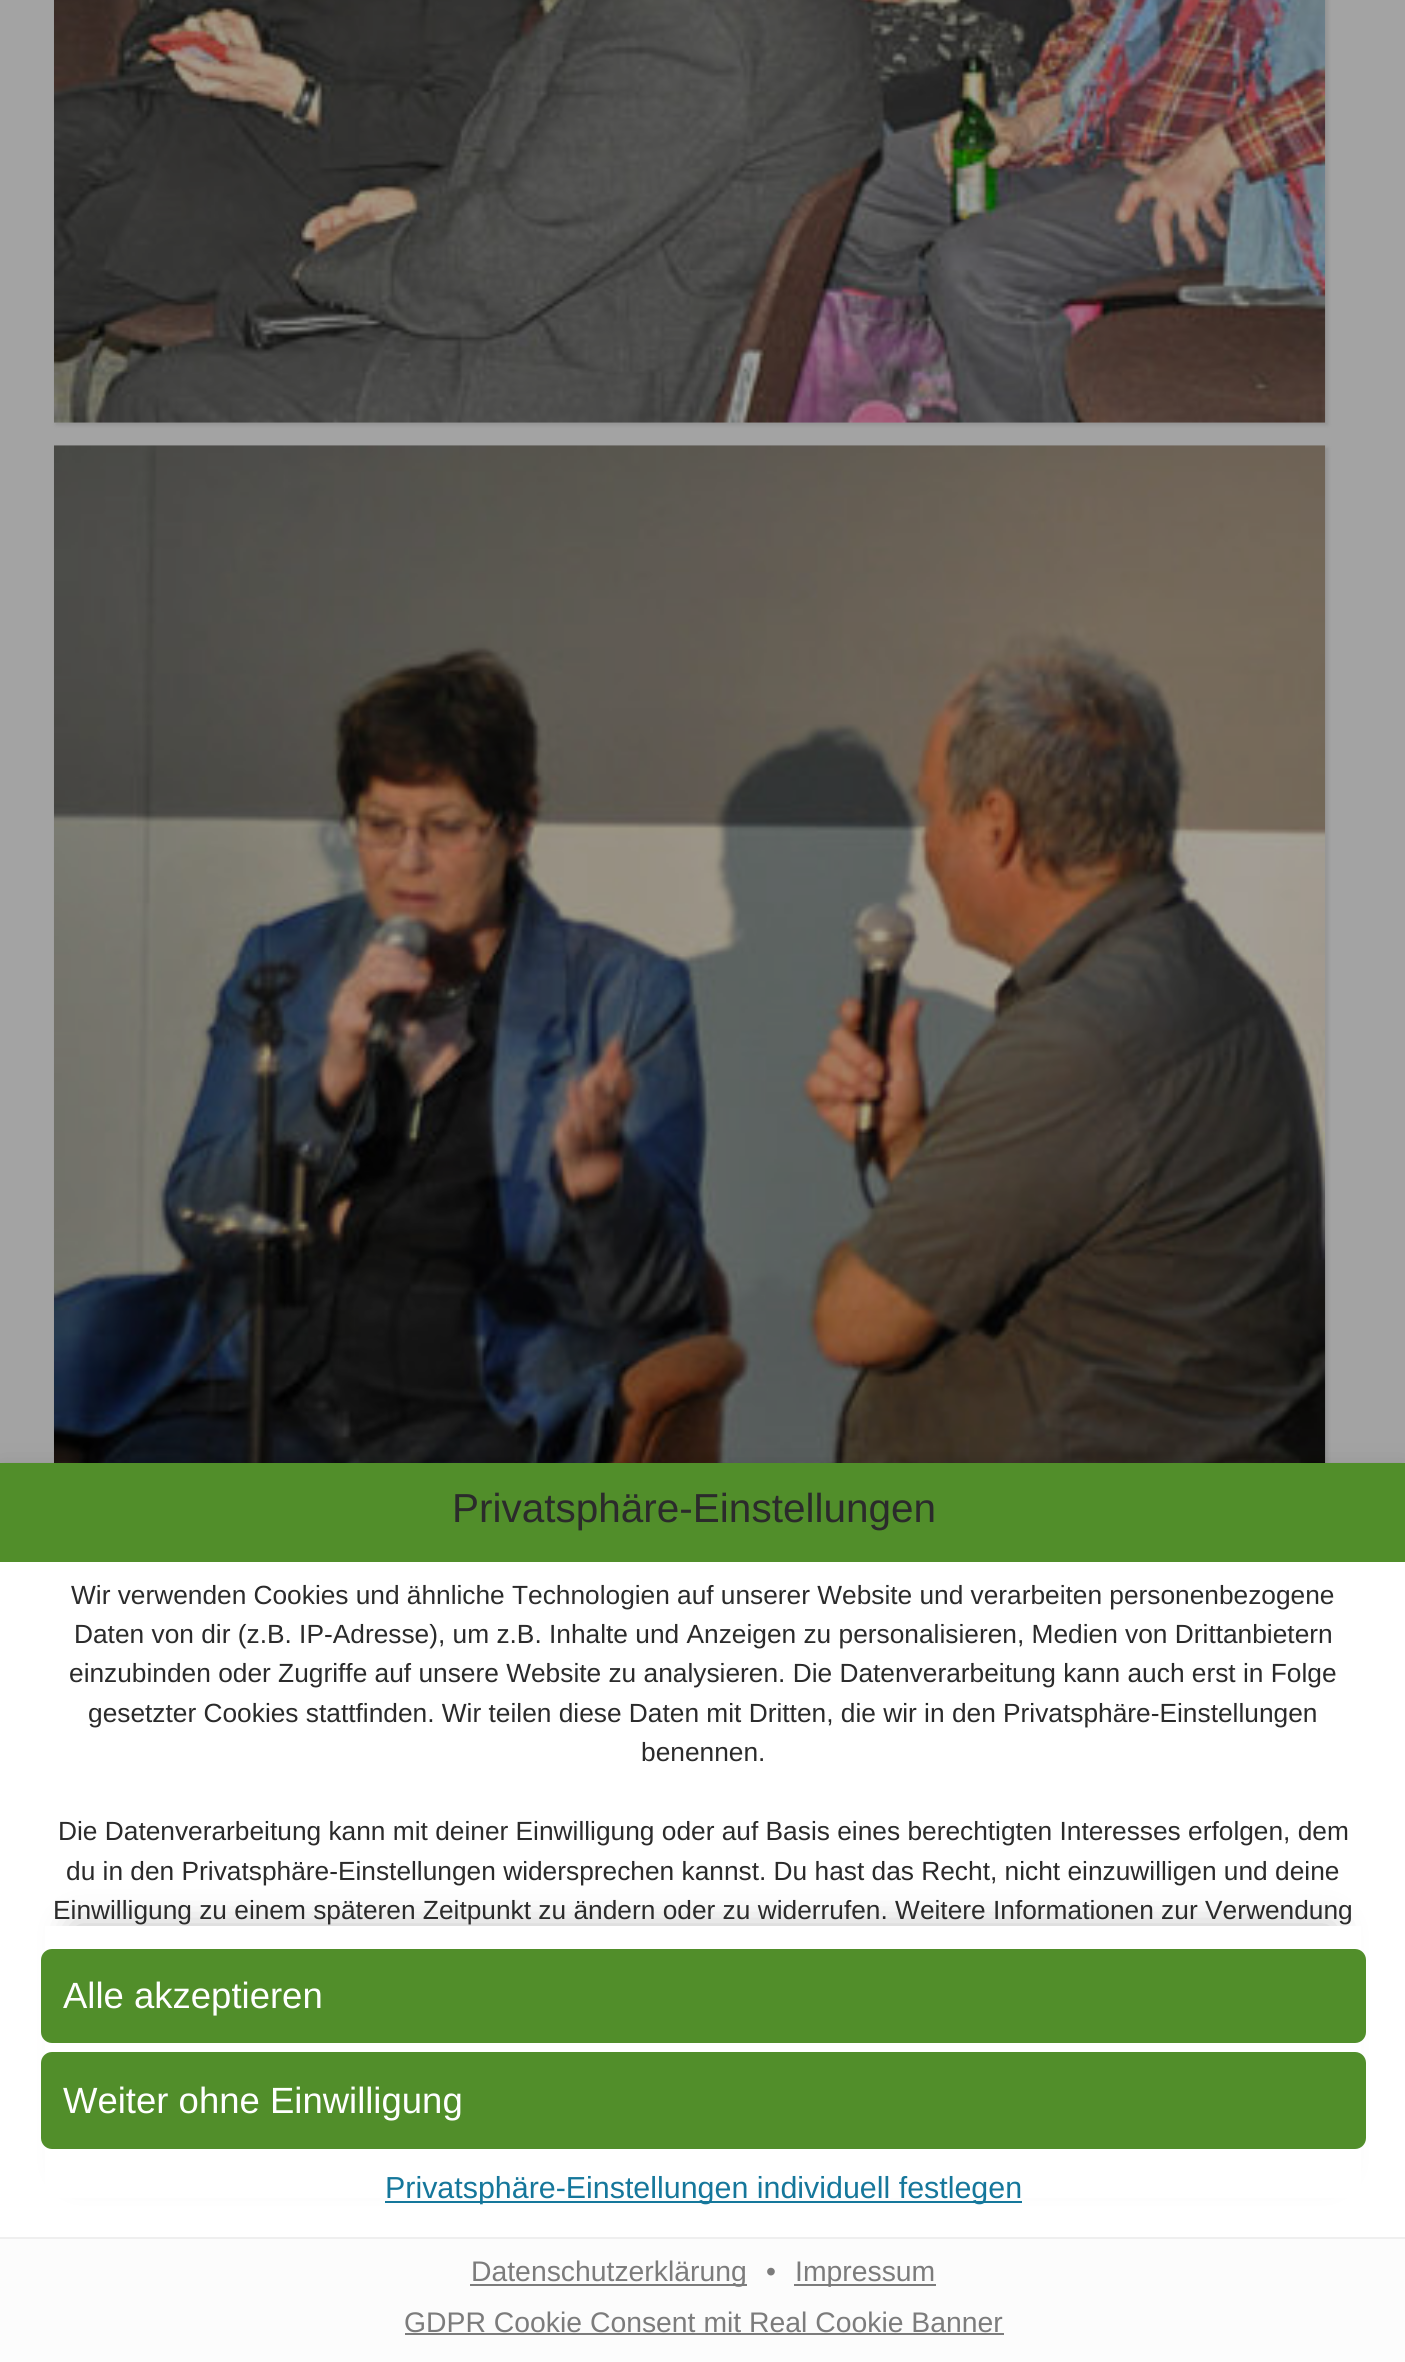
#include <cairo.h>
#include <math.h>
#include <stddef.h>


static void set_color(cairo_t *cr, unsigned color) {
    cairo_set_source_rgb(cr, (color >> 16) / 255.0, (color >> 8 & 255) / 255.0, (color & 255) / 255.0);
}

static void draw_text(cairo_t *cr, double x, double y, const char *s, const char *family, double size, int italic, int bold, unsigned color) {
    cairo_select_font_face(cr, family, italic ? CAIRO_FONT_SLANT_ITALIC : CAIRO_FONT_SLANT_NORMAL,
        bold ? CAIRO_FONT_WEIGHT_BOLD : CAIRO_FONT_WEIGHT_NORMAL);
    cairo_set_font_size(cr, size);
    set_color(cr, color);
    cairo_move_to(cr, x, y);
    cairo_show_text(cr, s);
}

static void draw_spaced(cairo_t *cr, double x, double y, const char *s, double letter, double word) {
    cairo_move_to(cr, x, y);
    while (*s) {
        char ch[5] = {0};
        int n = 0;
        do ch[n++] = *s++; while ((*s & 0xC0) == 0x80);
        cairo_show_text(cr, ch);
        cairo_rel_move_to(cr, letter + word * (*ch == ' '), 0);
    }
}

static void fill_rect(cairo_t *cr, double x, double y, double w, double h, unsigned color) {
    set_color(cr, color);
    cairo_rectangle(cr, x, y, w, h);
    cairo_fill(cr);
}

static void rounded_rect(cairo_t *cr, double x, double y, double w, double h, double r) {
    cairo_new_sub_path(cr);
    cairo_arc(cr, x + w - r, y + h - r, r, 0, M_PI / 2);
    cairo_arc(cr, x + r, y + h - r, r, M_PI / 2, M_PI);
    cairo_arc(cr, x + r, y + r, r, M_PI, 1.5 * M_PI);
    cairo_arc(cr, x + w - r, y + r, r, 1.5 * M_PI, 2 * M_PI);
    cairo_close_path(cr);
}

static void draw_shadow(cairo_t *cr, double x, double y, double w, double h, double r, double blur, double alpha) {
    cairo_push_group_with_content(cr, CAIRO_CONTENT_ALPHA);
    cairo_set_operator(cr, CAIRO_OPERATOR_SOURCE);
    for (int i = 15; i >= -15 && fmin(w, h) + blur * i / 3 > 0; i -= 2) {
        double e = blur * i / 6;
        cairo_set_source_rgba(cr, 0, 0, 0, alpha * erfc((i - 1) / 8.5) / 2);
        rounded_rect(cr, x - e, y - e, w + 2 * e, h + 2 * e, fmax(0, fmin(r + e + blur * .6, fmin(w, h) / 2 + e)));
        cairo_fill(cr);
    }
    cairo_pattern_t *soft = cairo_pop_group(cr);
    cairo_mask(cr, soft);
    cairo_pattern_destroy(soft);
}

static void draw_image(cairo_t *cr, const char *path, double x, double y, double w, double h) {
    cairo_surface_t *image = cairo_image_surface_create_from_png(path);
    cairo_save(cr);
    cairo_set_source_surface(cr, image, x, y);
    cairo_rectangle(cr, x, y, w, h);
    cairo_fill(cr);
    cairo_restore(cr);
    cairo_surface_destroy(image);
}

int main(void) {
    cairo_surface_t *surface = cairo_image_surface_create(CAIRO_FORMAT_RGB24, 1405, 2362);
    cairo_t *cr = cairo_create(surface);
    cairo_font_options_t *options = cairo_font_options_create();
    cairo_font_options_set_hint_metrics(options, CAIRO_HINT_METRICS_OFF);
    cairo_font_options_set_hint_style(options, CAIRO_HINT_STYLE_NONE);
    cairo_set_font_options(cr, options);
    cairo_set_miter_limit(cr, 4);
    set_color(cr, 0xA3A3A3);
    cairo_paint(cr);
    set_color(cr, 0x939393);
    draw_shadow(cr, 56, -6, 1272, 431, 0, 2, 1);
    draw_image(cr, "assets/img1.png", 54, 0, 1272, 423);
    draw_shadow(cr, 56, 448, 1272, 1271, 0, 2, 1);
    draw_image(cr, "assets/img2.png", 54, 445, 1272, 1018);
    set_color(cr, 0x000000);
    draw_shadow(cr, 0, 1474, 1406, 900, 0, 14.5, 0.2);
    fill_rect(cr, 0, 1463, 1405, 99, 0x518E2A);
    draw_text(cr, 452, 1522, "Privatsphäre-Einstellungen", "Liberation Sans", 40.5, 0, 0, 0x2B2B2B);
    fill_rect(cr, 0, 1562, 1405, 675, 0xFFFFFF);
    cairo_set_font_size(cr, 26.3);
    set_color(cr, 0x2B2B2B);
    draw_spaced(cr, 71, 1604, "Wir verwenden Cookies und ähnliche Technologien auf unserer Website und verarbeiten personenbezogene", 0, -0.1);
    draw_text(cr, 74, 1643, "Daten von dir (z.B. IP-Adresse), um z.B. Inhalte und Anzeigen zu personalisieren, Medien von Drittanbietern", "Liberation Sans", 26.3, 0, 0, 0x2B2B2B);
    draw_text(cr, 69, 1682, "einzubinden oder Zugriffe auf unsere Website zu analysieren. Die Datenverarbeitung kann auch erst in Folge", "Liberation Sans", 26.3, 0, 0, 0x2B2B2B);
    draw_text(cr, 88, 1722, "gesetzter Cookies stattfinden. Wir teilen diese Daten mit Dritten, die wir in den Privatsphäre-Einstellungen", "Liberation Sans", 26.3, 0, 0, 0x2B2B2B);
    draw_text(cr, 641, 1761, "benennen.", "Liberation Sans", 26.3, 0, 0, 0x2B2B2B);
    draw_text(cr, 58, 1840, "Die Datenverarbeitung kann mit deiner Einwilligung oder auf Basis eines berechtigten Interesses erfolgen, dem", "Liberation Sans", 26.3, 0, 0, 0x2B2B2B);
    draw_text(cr, 66, 1880, "du in den Privatsphäre-Einstellungen widersprechen kannst. Du hast das Recht, nicht einzuwilligen und deine", "Liberation Sans", 26.3, 0, 0, 0x2B2B2B);
    draw_text(cr, 53, 1919, "Einwilligung zu einem späteren Zeitpunkt zu ändern oder zu widerrufen. Weitere Informationen zur Verwendung", "Liberation Sans", 26.3, 0, 0, 0x2B2B2B);
    set_color(cr, 0x2B2B2B);
    draw_shadow(cr, 74, 1926, 1258, 243, 0, 17, 0.3);
    fill_rect(cr, 45, 1926, 1316, 272, 0xFFFFFF);
    set_color(cr, 0x518E2A);
    rounded_rect(cr, 41, 1949, 1325, 94, 11);
    cairo_fill(cr);
    draw_text(cr, 63, 2008, "Alle akzeptieren", "Liberation Sans", 36.5, 0, 0, 0xFFFFFF);
    set_color(cr, 0x518E2A);
    rounded_rect(cr, 41, 2052, 1325, 97, 11);
    cairo_fill(cr);
    draw_text(cr, 63, 2113, "Weiter ohne Einwilligung", "Liberation Sans", 36.5, 0, 0, 0xFFFFFF);
    fill_rect(cr, 385, 2201, 637, 2, 0x15779B);
    draw_text(cr, 385, 2198, "Privatsphäre-Einstellungen individuell festlegen", "Liberation Sans", 30.4, 0, 0, 0x15779B);
    fill_rect(cr, 0, 2239, 1405, 123, 0xFCFCFC);
    fill_rect(cr, 0, 2237, 1405, 2, 0xEFEFEF);
    fill_rect(cr, 470, 2284, 277, 2, 0x7C7C7C);
    draw_text(cr, 471, 2281, "Datenschutzerklärung", "Liberation Sans", 28.35, 0, 0, 0x7C7C7C);
    draw_text(cr, 766, 2281, "•", "Liberation Sans", 28.35, 0, 0, 0x7C7C7C);
    fill_rect(cr, 794, 2284, 142, 2, 0x7C7C7C);
    draw_text(cr, 795, 2281, "Impressum", "Liberation Sans", 28.35, 0, 0, 0x7C7C7C);
    draw_text(cr, 404, 2332, "GDPR Cookie Consent mit Real Cookie Banner", "Liberation Sans", 28.35, 0, 0, 0x7C7C7C);
    fill_rect(cr, 405, 2333, 599, 2, 0x7C7C7C);
    cairo_surface_write_to_png(surface, "output.png");
    cairo_font_options_destroy(options);
    cairo_destroy(cr);
    cairo_surface_destroy(surface);
    return 0;
}
